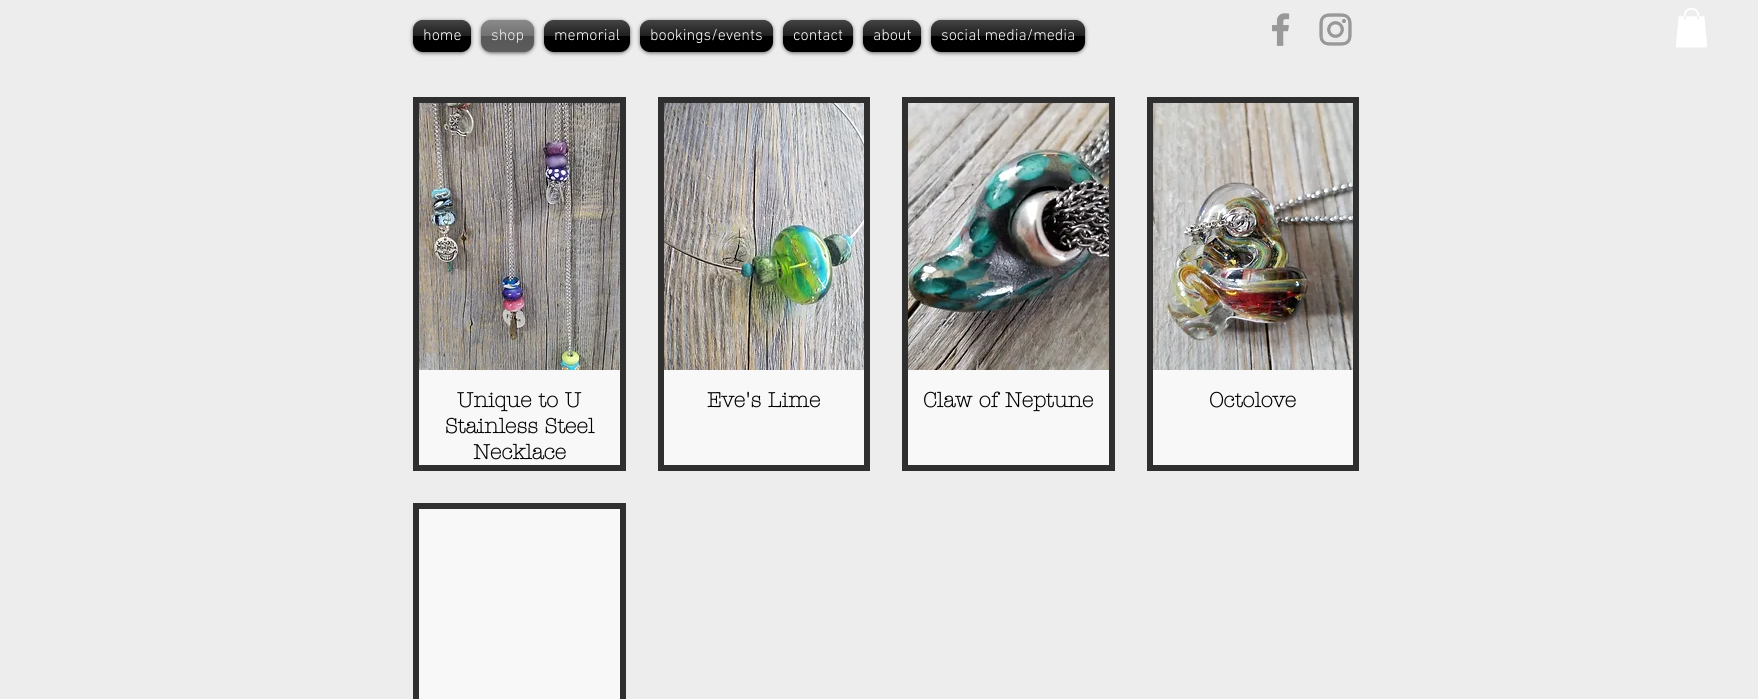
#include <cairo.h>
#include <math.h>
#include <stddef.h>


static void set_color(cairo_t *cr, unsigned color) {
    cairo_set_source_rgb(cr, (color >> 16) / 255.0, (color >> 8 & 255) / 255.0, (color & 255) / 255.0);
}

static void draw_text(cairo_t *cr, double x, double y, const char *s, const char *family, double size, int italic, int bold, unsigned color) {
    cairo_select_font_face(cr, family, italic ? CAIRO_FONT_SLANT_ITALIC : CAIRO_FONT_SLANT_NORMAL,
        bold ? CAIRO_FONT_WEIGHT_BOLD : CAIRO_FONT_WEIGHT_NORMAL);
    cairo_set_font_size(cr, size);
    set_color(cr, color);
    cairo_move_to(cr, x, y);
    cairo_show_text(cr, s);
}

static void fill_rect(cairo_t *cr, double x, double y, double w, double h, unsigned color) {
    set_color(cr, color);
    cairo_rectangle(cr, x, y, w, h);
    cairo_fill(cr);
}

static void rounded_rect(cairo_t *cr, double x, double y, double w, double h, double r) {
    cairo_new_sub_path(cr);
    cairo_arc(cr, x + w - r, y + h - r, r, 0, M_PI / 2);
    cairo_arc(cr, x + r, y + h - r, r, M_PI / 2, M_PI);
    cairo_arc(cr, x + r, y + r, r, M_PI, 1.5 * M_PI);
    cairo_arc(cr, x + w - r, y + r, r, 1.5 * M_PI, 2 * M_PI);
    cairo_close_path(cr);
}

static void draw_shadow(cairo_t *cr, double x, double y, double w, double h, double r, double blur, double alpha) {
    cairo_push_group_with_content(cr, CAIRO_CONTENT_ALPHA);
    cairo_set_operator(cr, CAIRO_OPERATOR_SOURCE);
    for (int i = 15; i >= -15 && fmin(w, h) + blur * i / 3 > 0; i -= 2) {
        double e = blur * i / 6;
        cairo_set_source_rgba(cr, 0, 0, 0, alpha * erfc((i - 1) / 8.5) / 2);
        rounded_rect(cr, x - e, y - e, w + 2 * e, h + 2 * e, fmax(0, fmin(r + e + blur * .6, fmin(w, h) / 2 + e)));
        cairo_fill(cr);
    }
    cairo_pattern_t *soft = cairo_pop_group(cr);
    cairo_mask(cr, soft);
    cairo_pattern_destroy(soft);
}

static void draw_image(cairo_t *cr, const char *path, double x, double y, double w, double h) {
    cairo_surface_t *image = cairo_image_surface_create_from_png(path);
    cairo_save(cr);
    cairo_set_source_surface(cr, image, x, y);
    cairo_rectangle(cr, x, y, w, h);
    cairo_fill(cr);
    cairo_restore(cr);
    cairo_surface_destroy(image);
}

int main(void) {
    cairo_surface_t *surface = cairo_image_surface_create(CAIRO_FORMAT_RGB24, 1758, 699);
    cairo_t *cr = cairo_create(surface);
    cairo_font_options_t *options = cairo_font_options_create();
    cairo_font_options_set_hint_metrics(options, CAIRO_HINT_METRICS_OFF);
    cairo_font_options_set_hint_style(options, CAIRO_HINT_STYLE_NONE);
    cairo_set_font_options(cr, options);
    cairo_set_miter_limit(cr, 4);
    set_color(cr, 0xEDEDEE);
    cairo_paint(cr);
    set_color(cr, 0x000000);
    draw_shadow(cr, 413, 21, 58, 32, 10, 2, 0.6);
    set_color(cr, 0x000000);
    rounded_rect(cr, 413, 20, 58, 32, 10);
    cairo_fill(cr);
    draw_image(cr, "assets/img1.png", 413, 20, 58, 16);
    draw_text(cr, 423, 40, "home", "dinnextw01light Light", 16, 0, 0, 0xFFFFFF);
    set_color(cr, 0x000000);
    draw_shadow(cr, 481, 21, 53, 32, 10, 2, 0.6);
    set_color(cr, 0x5F5F5F);
    rounded_rect(cr, 481, 20, 53, 32, 10);
    cairo_fill(cr);
    draw_image(cr, "assets/img2.png", 481, 20, 53, 30);
    draw_text(cr, 491, 40, "shop", "dinnextw01light Light", 16, 0, 0, 0xEDEDEE);
    set_color(cr, 0x000000);
    draw_shadow(cr, 544, 21, 86, 32, 10, 2, 0.6);
    set_color(cr, 0x000000);
    rounded_rect(cr, 544, 20, 86, 32, 10);
    cairo_fill(cr);
    draw_image(cr, "assets/img3.png", 544, 20, 86, 16);
    draw_text(cr, 554, 40, "memorial", "dinnextw01light Light", 16, 0, 0, 0xFFFFFF);
    set_color(cr, 0x000000);
    draw_shadow(cr, 640, 21, 133, 32, 10, 2, 0.6);
    set_color(cr, 0x000000);
    rounded_rect(cr, 640, 20, 133, 32, 10);
    cairo_fill(cr);
    draw_image(cr, "assets/img4.png", 640, 20, 133, 16);
    draw_text(cr, 650, 40, "bookings/events", "dinnextw01light Light", 16, 0, 0, 0xFFFFFF);
    set_color(cr, 0x000000);
    draw_shadow(cr, 783, 21, 70, 32, 10, 2, 0.6);
    set_color(cr, 0x000000);
    rounded_rect(cr, 783, 20, 70, 32, 10);
    cairo_fill(cr);
    draw_image(cr, "assets/img5.png", 783, 20, 70, 16);
    draw_text(cr, 793, 40, "contact", "dinnextw01light Light", 16, 0, 0, 0xFFFFFF);
    set_color(cr, 0x000000);
    draw_shadow(cr, 863, 21, 58, 32, 10, 2, 0.6);
    set_color(cr, 0x000000);
    rounded_rect(cr, 863, 20, 58, 32, 10);
    cairo_fill(cr);
    draw_image(cr, "assets/img6.png", 863, 20, 58, 16);
    draw_text(cr, 873, 40, "about", "dinnextw01light Light", 16, 0, 0, 0xFFFFFF);
    set_color(cr, 0x000000);
    draw_shadow(cr, 931, 21, 154, 32, 10, 2, 0.6);
    set_color(cr, 0x000000);
    rounded_rect(cr, 931, 20, 154, 32, 10);
    cairo_fill(cr);
    draw_image(cr, "assets/img7.png", 931, 20, 154, 16);
    draw_text(cr, 941, 40, "social media/media", "dinnextw01light Light", 16, 0, 0, 0xFFFFFF);
    draw_image(cr, "assets/img8.png", 1272, 13, 18, 33);
    draw_image(cr, "assets/img9.png", 1319, 13, 33, 33);
    draw_image(cr, "assets/img10.png", 1272, 13, 18, 33);
    draw_image(cr, "assets/img11.png", 1319, 13, 33, 33);
    draw_image(cr, "assets/img12.png", 1676, 8, 31, 40);
    fill_rect(cr, 419, 370, 201, 95, 0xF8F8F9);
    cairo_rectangle(cr, 416, 100, 207, 368);
    set_color(cr, 0x2F2F30);
    cairo_set_line_width(cr, 6);
    cairo_stroke(cr);
    draw_image(cr, "assets/img13.png", 419, 103, 201, 267);
    draw_text(cr, 457, 407, "Unique to U", "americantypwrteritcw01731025", 21, 0, 1, 0x000000);
    draw_text(cr, 445, 433, "Stainless Steel", "americantypwrteritcw01731025", 21, 0, 1, 0x000000);
    draw_text(cr, 473, 459, "Necklace", "americantypwrteritcw01731025", 21, 0, 1, 0x000000);
    fill_rect(cr, 664, 370, 200, 95, 0xF8F8F9);
    cairo_rectangle(cr, 661, 100, 206, 368);
    set_color(cr, 0x2F2F30);
    cairo_stroke(cr);
    draw_image(cr, "assets/img14.png", 664, 103, 200, 267);
    draw_text(cr, 707, 407, "Eve's Lime", "americantypwrteritcw01731025", 21, 0, 1, 0x000000);
    fill_rect(cr, 908, 370, 201, 95, 0xF8F8F9);
    cairo_rectangle(cr, 905, 100, 207, 368);
    set_color(cr, 0x2F2F30);
    cairo_stroke(cr);
    draw_image(cr, "assets/img15.png", 908, 103, 201, 267);
    draw_text(cr, 923, 407, "Claw of Neptune", "americantypwrteritcw01731025", 21, 0, 1, 0x000000);
    fill_rect(cr, 1153, 370, 200, 95, 0xF8F8F9);
    cairo_rectangle(cr, 1150, 100, 206, 368);
    set_color(cr, 0x2F2F30);
    cairo_stroke(cr);
    draw_image(cr, "assets/img16.png", 1153, 103, 200, 267);
    draw_text(cr, 1209, 407, "Octolove", "americantypwrteritcw01731025", 21, 0, 1, 0x000000);
    set_color(cr, 0xF8F8F9);
    cairo_rectangle(cr, 416, 506, 207, 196);
    cairo_fill_preserve(cr);
    set_color(cr, 0x2F2F30);
    cairo_stroke(cr);
    cairo_surface_write_to_png(surface, "output.png");
    cairo_font_options_destroy(options);
    cairo_destroy(cr);
    cairo_surface_destroy(surface);
    return 0;
}
